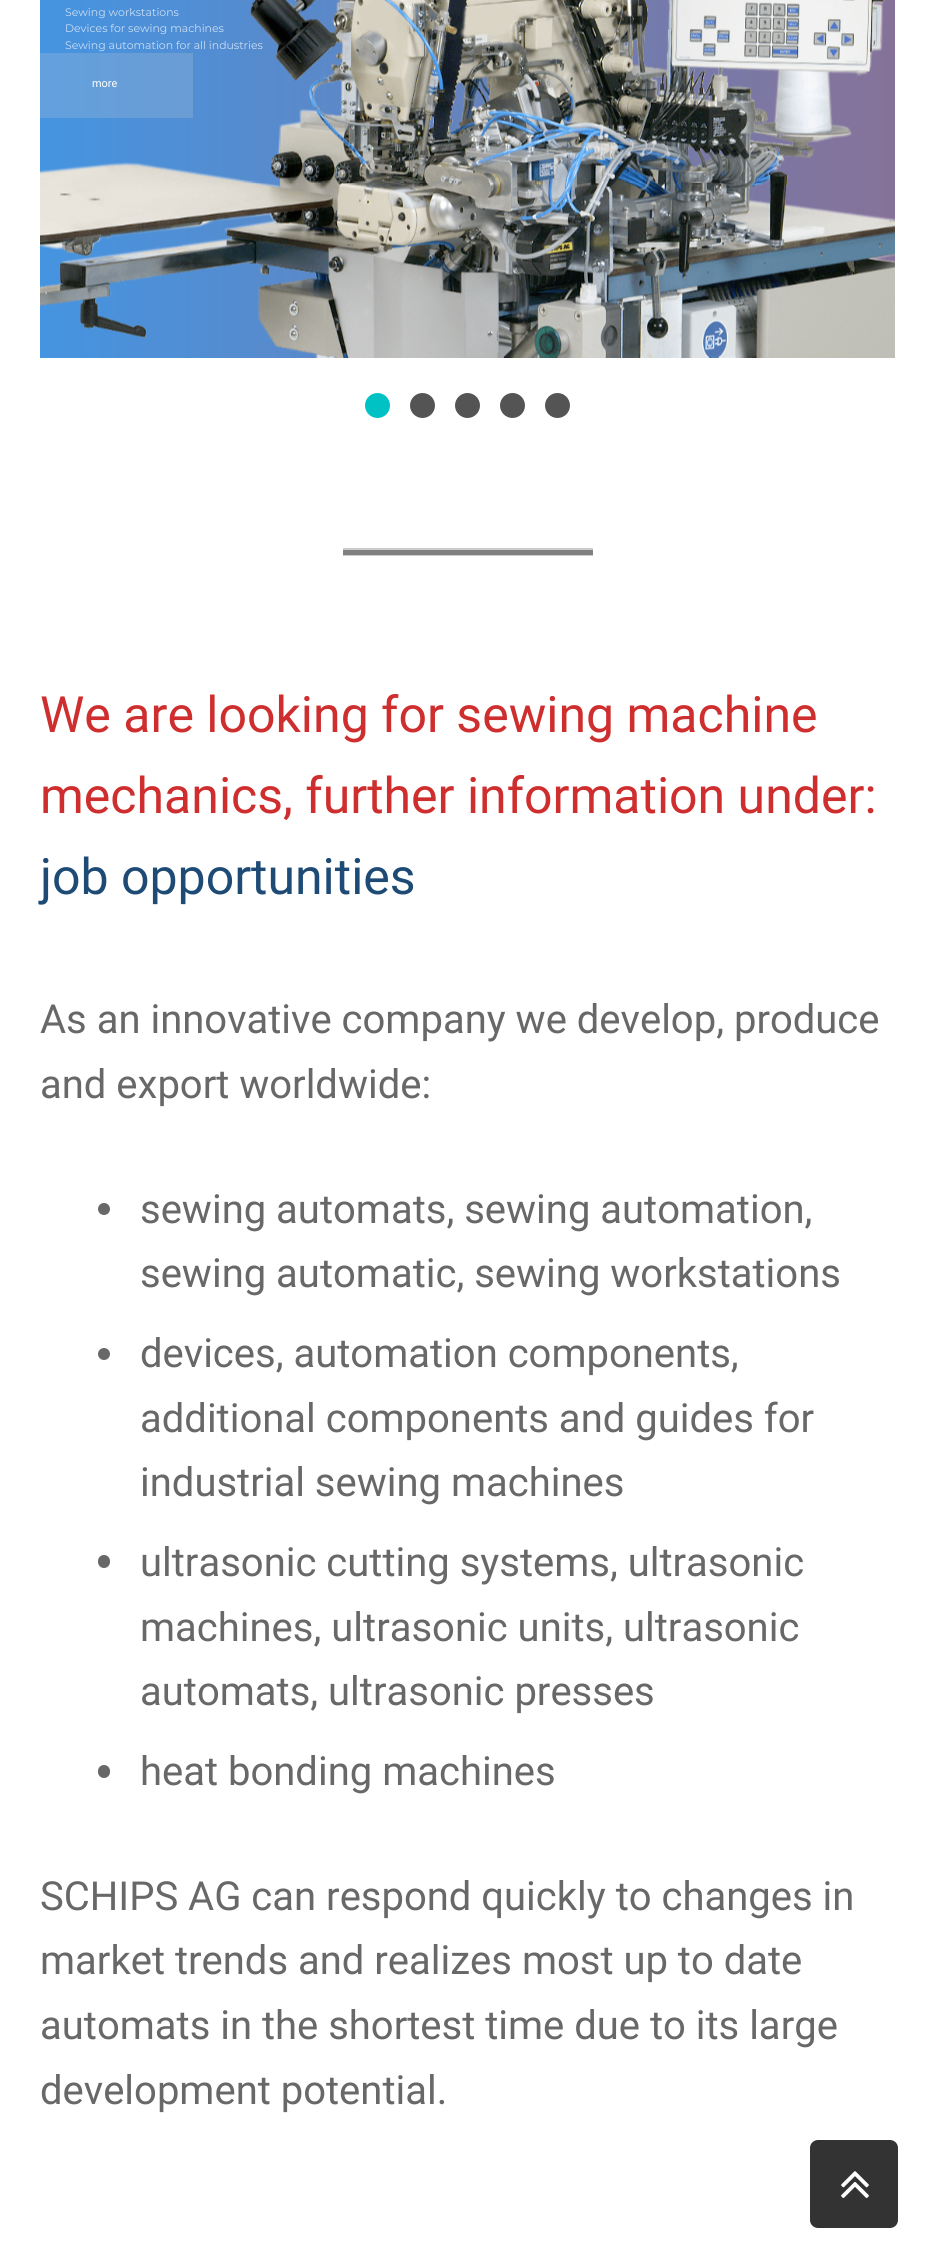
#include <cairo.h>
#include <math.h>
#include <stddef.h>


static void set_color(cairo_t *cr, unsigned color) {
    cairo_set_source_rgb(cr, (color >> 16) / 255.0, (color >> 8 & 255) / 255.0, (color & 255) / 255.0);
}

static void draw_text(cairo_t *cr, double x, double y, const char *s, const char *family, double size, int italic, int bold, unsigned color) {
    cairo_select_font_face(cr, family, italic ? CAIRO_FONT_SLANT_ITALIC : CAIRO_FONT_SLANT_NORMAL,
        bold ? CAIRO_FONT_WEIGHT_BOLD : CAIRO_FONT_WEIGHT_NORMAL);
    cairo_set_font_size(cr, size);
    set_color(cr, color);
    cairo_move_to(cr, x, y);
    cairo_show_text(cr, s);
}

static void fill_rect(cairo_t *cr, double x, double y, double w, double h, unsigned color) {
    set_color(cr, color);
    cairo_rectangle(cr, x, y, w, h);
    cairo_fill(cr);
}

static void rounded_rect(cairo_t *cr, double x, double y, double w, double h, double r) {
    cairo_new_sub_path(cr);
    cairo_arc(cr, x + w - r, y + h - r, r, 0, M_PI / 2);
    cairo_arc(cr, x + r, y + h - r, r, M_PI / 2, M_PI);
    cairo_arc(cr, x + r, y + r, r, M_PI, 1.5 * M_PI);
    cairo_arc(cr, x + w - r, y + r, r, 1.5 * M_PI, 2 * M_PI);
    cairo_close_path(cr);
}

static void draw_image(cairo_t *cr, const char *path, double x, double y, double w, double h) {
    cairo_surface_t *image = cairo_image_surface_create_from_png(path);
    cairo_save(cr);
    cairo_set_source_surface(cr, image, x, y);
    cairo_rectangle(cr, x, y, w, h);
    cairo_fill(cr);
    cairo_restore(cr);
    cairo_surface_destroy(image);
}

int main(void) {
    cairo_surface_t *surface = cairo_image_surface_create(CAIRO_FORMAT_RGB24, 935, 2264);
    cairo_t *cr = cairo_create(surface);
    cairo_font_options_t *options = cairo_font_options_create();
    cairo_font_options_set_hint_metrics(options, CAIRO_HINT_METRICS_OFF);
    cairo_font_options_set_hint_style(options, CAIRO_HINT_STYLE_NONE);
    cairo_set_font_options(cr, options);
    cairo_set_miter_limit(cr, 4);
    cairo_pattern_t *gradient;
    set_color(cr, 0xFFFFFF);
    cairo_paint(cr);
    gradient = cairo_pattern_create_linear(40, 144, 895, 144);
    cairo_pattern_add_color_stop_rgba(gradient, 0, 0.271, 0.58, 0.882, 1);
    cairo_pattern_add_color_stop_rgba(gradient, 1, 0.525, 0.447, 0.596, 1);
    cairo_set_source(cr, gradient);
    cairo_pattern_destroy(gradient);
    cairo_rectangle(cr, 40, 0, 855, 358);
    cairo_fill(cr);
    gradient = cairo_pattern_create_linear(40, 144, 895, 144);
    cairo_pattern_add_color_stop_rgba(gradient, 0, 0.384, 0.631, 0.871, 1);
    cairo_pattern_add_color_stop_rgba(gradient, 1, 0.584, 0.525, 0.647, 1);
    cairo_set_source(cr, gradient);
    cairo_pattern_destroy(gradient);
    cairo_rectangle(cr, 40, 53, 153, 65);
    cairo_fill(cr);
    draw_image(cr, "assets/img1.png", 40, 0, 855, 358);
    draw_text(cr, 65, 16, "Sewing workstations", "Montserrat", 10.9, 0, 0, 0xC9DEF4);
    draw_text(cr, 65, 32, "Devices for sewing machines", "Montserrat", 10.9, 0, 0, 0xC9DEF4);
    draw_text(cr, 65, 49, "Sewing automation for all industries", "Montserrat", 10.9, 0, 0, 0xC9DEF4);
    draw_text(cr, 92, 87, "more", "Roboto", 10.9, 0, 0, 0xFFFFFF);
    set_color(cr, 0x00C1C4);
    cairo_new_path(cr);
    cairo_arc(cr, 377.5, 405.5, 12.5, 0, 2 * M_PI);
    cairo_fill(cr);
    set_color(cr, 0x545454);
    cairo_arc(cr, 422.5, 405.5, 12.5, 0, 2 * M_PI);
    cairo_fill(cr);
    cairo_arc(cr, 467.5, 405.5, 12.5, 0, 2 * M_PI);
    cairo_fill(cr);
    cairo_arc(cr, 512.5, 405.5, 12.5, 0, 2 * M_PI);
    cairo_fill(cr);
    cairo_arc(cr, 557.5, 405.5, 12.5, 0, 2 * M_PI);
    cairo_fill(cr);
    fill_rect(cr, 343, 548, 250, 8, 0xCCCCCC);
    fill_rect(cr, 343, 550, 250, 5, 0x808080);
    draw_text(cr, 40, 732, "We are looking for sewing machine", "Roboto", 50, 0, 0, 0xCF2E2E);
    draw_text(cr, 40, 813, "mechanics, further information under:", "Roboto", 50, 0, 0, 0xCF2E2E);
    draw_text(cr, 40, 894, "job opportunities", "Roboto", 50, 0, 0, 0x1E4B75);
    draw_text(cr, 40, 1033, "As an innovative company we develop, produce", "Roboto", 40, 0, 0, 0x686868);
    draw_text(cr, 40, 1098, "and export worldwide:", "Roboto", 40, 0, 0, 0x686868);
    cairo_new_path(cr);
    cairo_arc(cr, 104, 1209, 6, 0, 2 * M_PI);
    cairo_fill(cr);
    draw_text(cr, 140, 1223, "sewing automats, sewing automation,", "Roboto", 40, 0, 0, 0x686868);
    draw_text(cr, 140, 1287, "sewing automatic, sewing workstations", "Roboto", 40, 0, 0, 0x686868);
    cairo_new_path(cr);
    cairo_arc(cr, 104, 1354, 6, 0, 2 * M_PI);
    cairo_fill(cr);
    draw_text(cr, 140, 1367, "devices, automation components,", "Roboto", 40, 0, 0, 0x686868);
    draw_text(cr, 140, 1432, "additional components and guides for", "Roboto", 40, 0, 0, 0x686868);
    draw_text(cr, 140, 1496, "industrial sewing machines", "Roboto", 40, 0, 0, 0x686868);
    rounded_rect(cr, 98, 1555, 12, 13, 6);
    cairo_fill(cr);
    draw_text(cr, 140, 1576, "ultrasonic cutting systems, ultrasonic", "Roboto", 40, 0, 0, 0x686868);
    draw_text(cr, 140, 1641, "machines, ultrasonic units, ultrasonic", "Roboto", 40, 0, 0, 0x686868);
    draw_text(cr, 140, 1705, "automats, ultrasonic presses", "Roboto", 40, 0, 0, 0x686868);
    rounded_rect(cr, 98, 1765, 12, 13, 6);
    cairo_fill(cr);
    draw_text(cr, 140, 1785, "heat bonding machines", "Roboto", 40, 0, 0, 0x686868);
    draw_text(cr, 40, 1910, "SCHIPS AG can respond quickly to changes in", "Roboto", 40, 0, 0, 0x686868);
    draw_text(cr, 40, 1974, "market trends and realizes most up to date", "Roboto", 40, 0, 0, 0x686868);
    draw_text(cr, 40, 2039, "automats in the shortest time due to its large", "Roboto", 40, 0, 0, 0x686868);
    draw_text(cr, 40, 2104, "development potential.", "Roboto", 40, 0, 0, 0x686868);
    set_color(cr, 0x333333);
    rounded_rect(cr, 810, 2140, 88, 88, 8);
    cairo_fill(cr);
    draw_image(cr, "assets/img2.png", 841, 2171, 28, 27);
    cairo_surface_write_to_png(surface, "output.png");
    cairo_font_options_destroy(options);
    cairo_destroy(cr);
    cairo_surface_destroy(surface);
    return 0;
}
